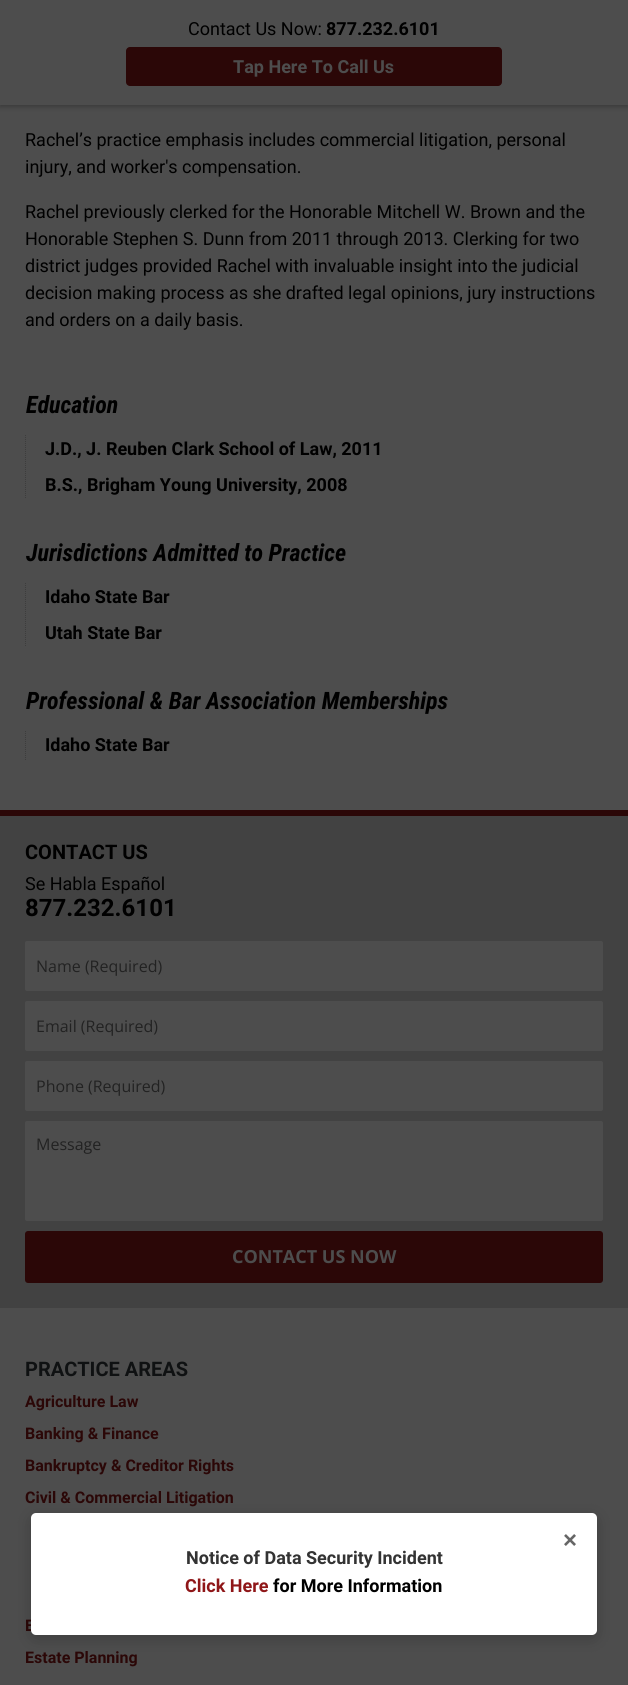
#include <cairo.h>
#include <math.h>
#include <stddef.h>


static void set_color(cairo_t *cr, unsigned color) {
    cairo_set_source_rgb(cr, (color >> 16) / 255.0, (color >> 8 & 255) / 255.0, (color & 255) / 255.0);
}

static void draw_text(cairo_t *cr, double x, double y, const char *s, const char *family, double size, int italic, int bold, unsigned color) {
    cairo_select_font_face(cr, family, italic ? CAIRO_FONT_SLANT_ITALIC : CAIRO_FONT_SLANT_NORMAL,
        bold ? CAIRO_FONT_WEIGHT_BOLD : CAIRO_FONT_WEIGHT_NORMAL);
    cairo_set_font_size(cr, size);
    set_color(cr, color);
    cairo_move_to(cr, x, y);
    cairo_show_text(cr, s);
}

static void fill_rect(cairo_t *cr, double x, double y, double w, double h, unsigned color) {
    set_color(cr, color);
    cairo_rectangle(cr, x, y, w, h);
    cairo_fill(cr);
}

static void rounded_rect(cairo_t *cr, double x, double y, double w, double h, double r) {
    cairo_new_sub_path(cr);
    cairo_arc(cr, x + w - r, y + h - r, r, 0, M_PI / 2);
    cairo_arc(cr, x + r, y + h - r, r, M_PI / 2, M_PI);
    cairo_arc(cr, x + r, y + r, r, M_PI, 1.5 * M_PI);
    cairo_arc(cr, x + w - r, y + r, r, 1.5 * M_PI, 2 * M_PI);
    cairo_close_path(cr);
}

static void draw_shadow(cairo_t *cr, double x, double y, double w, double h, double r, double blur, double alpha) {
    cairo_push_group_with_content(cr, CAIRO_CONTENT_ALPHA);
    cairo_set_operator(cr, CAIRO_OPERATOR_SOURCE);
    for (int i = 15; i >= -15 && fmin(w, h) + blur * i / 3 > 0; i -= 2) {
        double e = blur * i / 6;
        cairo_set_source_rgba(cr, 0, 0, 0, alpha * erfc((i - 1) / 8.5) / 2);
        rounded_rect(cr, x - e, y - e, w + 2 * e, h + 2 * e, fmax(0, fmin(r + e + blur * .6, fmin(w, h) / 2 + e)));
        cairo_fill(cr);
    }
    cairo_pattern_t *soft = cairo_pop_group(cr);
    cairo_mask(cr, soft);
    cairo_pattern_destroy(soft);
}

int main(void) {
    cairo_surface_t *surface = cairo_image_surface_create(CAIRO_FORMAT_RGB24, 628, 1685);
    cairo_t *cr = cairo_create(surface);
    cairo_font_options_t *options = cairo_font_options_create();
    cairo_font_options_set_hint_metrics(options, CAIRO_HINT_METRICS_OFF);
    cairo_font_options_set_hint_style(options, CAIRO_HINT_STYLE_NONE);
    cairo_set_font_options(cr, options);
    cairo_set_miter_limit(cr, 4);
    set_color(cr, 0x4D4D4D);
    cairo_paint(cr);
    set_color(cr, 0x000000);
    draw_shadow(cr, 0, 2, 628, 105, 0, 2.5, 0.26);
    fill_rect(cr, 0, 0, 628, 105, 0x4D4D4D);
    draw_text(cr, 188, 35, "Contact Us Now:", "Roboto", 18, 0, 0, 0x000000);
    draw_text(cr, 326, 35, "877.232.6101", "Roboto", 18, 0, 1, 0x000000);
    set_color(cr, 0x2B0707);
    rounded_rect(cr, 126, 47, 376, 39, 4);
    cairo_fill(cr);
    draw_text(cr, 233, 73, "Tap Here To Call Us", "Roboto", 18, 0, 1, 0x4D4D4D);
    draw_text(cr, 25, 146, "Rachel’s practice emphasis includes commercial litigation, personal", "Roboto", 18, 0, 0, 0x000000);
    draw_text(cr, 25, 173, "injury, and worker's compensation.", "Roboto", 18, 0, 0, 0x000000);
    draw_text(cr, 25, 218, "Rachel previously clerked for the Honorable Mitchell W. Brown and the", "Roboto", 18, 0, 0, 0x000000);
    draw_text(cr, 25, 245, "Honorable Stephen S. Dunn from 2011 through 2013. Clerking for two", "Roboto", 18, 0, 0, 0x000000);
    draw_text(cr, 25, 272, "district judges provided Rachel with invaluable insight into the judicial", "Roboto", 18, 0, 0, 0x000000);
    draw_text(cr, 25, 299, "decision making process as she drafted legal opinions, jury instructions", "Roboto", 18, 0, 0, 0x000000);
    draw_text(cr, 25, 326, "and orders on a daily basis.", "Roboto", 18, 0, 0, 0x000000);
    cairo_new_path(cr);
    cairo_move_to(cr, 25.5, 387);
    cairo_line_to(cr, 25.5, 499);
    set_color(cr, 0x3D3D3D);
    cairo_set_line_width(cr, 1);
    cairo_set_dash(cr, (double[]){1, 1}, 2, 0);
    cairo_stroke(cr);
    fill_rect(cr, 25, 387, 1, 48, 0x4D4D4D);
    draw_text(cr, 26, 413, "Education", "Roboto Condensed", 24, 1, 1, 0x000000);
    draw_text(cr, 45, 455, "J.D., J. Reuben Clark School of Law, 2011", "Roboto", 18, 0, 1, 0x000000);
    draw_text(cr, 45, 491, "B.S., Brigham Young University, 2008", "Roboto", 18, 0, 1, 0x000000);
    cairo_new_path(cr);
    cairo_move_to(cr, 25.5, 535);
    cairo_line_to(cr, 25.5, 647);
    set_color(cr, 0x3D3D3D);
    cairo_stroke(cr);
    fill_rect(cr, 25, 535, 1, 48, 0x4D4D4D);
    draw_text(cr, 26, 561, "Jurisdictions Admitted to Practice", "Roboto Condensed", 24, 1, 1, 0x000000);
    draw_text(cr, 45, 603, "Idaho State Bar", "Roboto", 18, 0, 1, 0x000000);
    draw_text(cr, 45, 639, "Utah State Bar", "Roboto", 18, 0, 1, 0x000000);
    cairo_new_path(cr);
    cairo_move_to(cr, 25.5, 683);
    cairo_line_to(cr, 25.5, 759);
    set_color(cr, 0x3D3D3D);
    cairo_stroke(cr);
    fill_rect(cr, 25, 683, 1, 48, 0x4D4D4D);
    draw_text(cr, 26, 709, "Professional & Bar Association Memberships", "Roboto Condensed", 24, 1, 1, 0x000000);
    draw_text(cr, 45, 751, "Idaho State Bar", "Roboto", 18, 0, 1, 0x000000);
    fill_rect(cr, 25, 759, 1, 1, 0x3D3D3D);
    fill_rect(cr, 0, 810, 628, 6, 0x2B0707);
    fill_rect(cr, 0, 816, 628, 492, 0x424242);
    draw_text(cr, 25, 859, "CONTACT US", "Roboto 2", 20, 0, 1, 0x000000);
    draw_text(cr, 25, 890, "Se Habla Español", "Roboto", 18, 0, 0, 0x000000);
    draw_text(cr, 25, 916, "877.232.6101", "Roboto", 24, 0, 1, 0x000000);
    set_color(cr, 0x4D4D4D);
    rounded_rect(cr, 25, 941, 578, 50, 2);
    cairo_fill(cr);
    draw_text(cr, 36, 972, "Name (Required)", "Open Sans", 16, 0, 0, 0x222222);
    set_color(cr, 0x4D4D4D);
    rounded_rect(cr, 25, 1001, 578, 50, 2);
    cairo_fill(cr);
    draw_text(cr, 36, 1032, "Email (Required)", "Open Sans", 16, 0, 0, 0x222222);
    set_color(cr, 0x4D4D4D);
    rounded_rect(cr, 25, 1061, 578, 50, 2);
    cairo_fill(cr);
    draw_text(cr, 36, 1092, "Phone (Required)", "Open Sans", 16, 0, 0, 0x222222);
    set_color(cr, 0x4D4D4D);
    rounded_rect(cr, 25, 1121, 578, 100, 2);
    cairo_fill(cr);
    draw_text(cr, 36, 1150, "Message", "Open Sans", 16, 0, 0, 0x222222);
    set_color(cr, 0x2B0707);
    rounded_rect(cr, 25, 1231, 578, 52, 3);
    cairo_fill(cr);
    draw_text(cr, 232, 1263, "CONTACT US NOW", "Open Sans", 18, 0, 1, 0x4D4D4D);
    draw_text(cr, 25, 1376, "PRACTICE AREAS", "Roboto 2", 20, 0, 1, 0x0F1112);
    draw_text(cr, 25, 1407, "Agriculture Law", "Roboto", 16, 0, 1, 0x2B0707);
    draw_text(cr, 25, 1439, "Banking & Finance", "Roboto", 16, 0, 1, 0x2B0707);
    draw_text(cr, 25, 1471, "Bankruptcy & Creditor Rights", "Roboto", 16, 0, 1, 0x2B0707);
    draw_text(cr, 25, 1503, "Civil & Commercial Litigation", "Roboto", 16, 0, 1, 0x2B0707);
    draw_text(cr, 25, 1631, "E", "Roboto", 16, 0, 1, 0x2B0707);
    draw_text(cr, 25, 1663, "Estate Planning", "Roboto", 16, 0, 1, 0x2B0707);
    set_color(cr, 0x000000);
    draw_shadow(cr, 31, 1517, 566, 122, 5, 7.5, 0.2);
    set_color(cr, 0xFFFFFF);
    rounded_rect(cr, 31, 1513, 566, 122, 5);
    cairo_fill(cr);
    draw_text(cr, 563, 1548, "×", "Liberation Sans", 24, 0, 1, 0x666666);
    draw_text(cr, 186, 1564, "Notice of Data Security Incident", "Roboto", 18, 0, 1, 0x333333);
    draw_text(cr, 185, 1592, "Click Here", "Roboto", 18, 0, 1, 0x8F1618);
    draw_text(cr, 273, 1592, "for More Information", "Roboto", 18, 0, 1, 0x000000);
    cairo_surface_write_to_png(surface, "output.png");
    cairo_font_options_destroy(options);
    cairo_destroy(cr);
    cairo_surface_destroy(surface);
    return 0;
}
